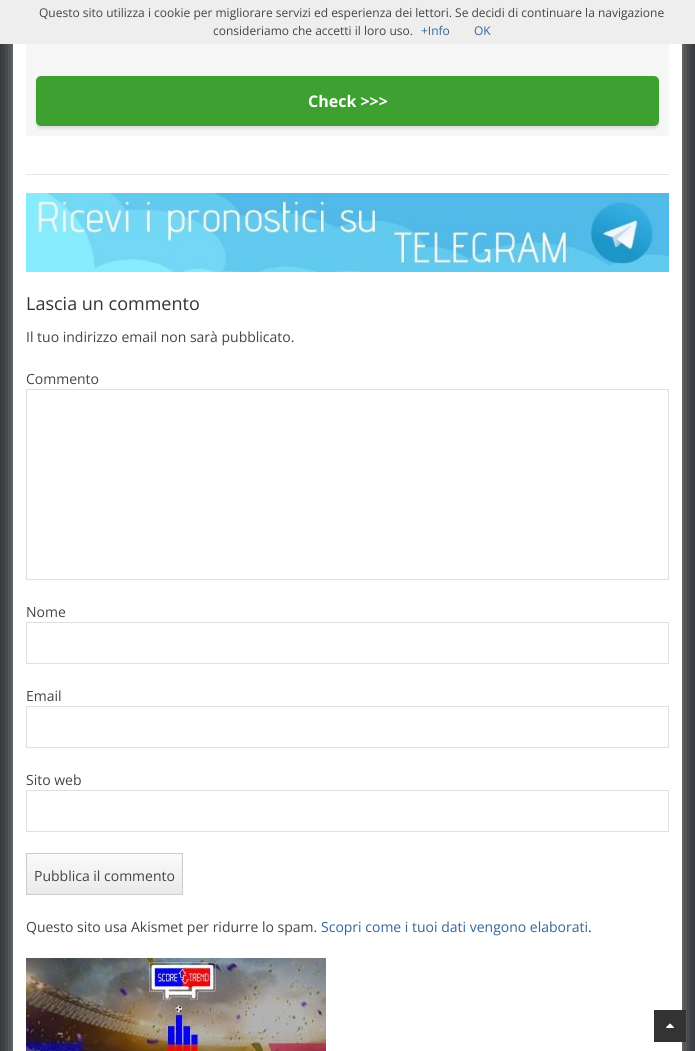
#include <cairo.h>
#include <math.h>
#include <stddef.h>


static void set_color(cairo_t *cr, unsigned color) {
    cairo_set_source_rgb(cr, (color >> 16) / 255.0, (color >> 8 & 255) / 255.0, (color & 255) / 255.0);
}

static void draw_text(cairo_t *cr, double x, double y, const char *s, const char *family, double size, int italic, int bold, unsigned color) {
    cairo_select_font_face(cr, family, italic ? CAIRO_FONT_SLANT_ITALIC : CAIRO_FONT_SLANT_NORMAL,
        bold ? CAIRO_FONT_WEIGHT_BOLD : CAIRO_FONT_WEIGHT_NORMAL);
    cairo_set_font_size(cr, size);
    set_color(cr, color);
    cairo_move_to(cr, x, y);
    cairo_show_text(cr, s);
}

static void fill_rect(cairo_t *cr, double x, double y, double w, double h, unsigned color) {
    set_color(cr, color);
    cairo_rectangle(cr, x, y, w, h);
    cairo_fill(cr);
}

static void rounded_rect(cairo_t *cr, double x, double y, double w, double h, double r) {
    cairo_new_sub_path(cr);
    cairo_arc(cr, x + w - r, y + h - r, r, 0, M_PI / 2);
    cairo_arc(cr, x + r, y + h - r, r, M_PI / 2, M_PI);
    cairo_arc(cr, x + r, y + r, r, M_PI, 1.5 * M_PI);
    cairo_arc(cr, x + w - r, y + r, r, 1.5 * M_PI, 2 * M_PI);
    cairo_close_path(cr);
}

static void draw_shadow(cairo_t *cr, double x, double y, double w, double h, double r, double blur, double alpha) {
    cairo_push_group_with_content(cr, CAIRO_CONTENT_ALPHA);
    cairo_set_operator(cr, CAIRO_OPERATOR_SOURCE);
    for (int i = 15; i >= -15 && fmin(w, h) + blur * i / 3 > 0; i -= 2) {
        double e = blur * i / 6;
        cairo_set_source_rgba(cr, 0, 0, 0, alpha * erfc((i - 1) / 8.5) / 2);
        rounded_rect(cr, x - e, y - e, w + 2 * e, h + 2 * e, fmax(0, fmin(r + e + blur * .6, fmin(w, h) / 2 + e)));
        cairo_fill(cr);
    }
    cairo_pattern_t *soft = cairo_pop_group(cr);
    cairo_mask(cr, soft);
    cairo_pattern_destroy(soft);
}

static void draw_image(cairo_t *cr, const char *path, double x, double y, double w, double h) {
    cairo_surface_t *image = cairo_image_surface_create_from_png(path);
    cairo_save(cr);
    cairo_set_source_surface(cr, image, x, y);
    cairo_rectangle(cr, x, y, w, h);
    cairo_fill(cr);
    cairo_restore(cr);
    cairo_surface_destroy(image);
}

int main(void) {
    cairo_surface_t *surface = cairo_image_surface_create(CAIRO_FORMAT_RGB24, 695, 1051);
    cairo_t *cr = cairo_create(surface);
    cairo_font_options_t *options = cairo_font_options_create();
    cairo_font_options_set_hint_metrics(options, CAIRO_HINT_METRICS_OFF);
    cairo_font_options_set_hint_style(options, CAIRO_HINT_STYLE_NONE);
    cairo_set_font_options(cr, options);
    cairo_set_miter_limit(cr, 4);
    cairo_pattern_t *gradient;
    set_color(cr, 0x2E3035);
    cairo_paint(cr);
    set_color(cr, 0xFFFFFF);
    draw_shadow(cr, 13, -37, 669, 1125, 7, 10, 0.5);
    fill_rect(cr, 0, 0, 695, 44, 0xEEEEEE);
    draw_text(cr, 39, 17, "Questo sito utilizza i cookie per migliorare servizi ed esperienza dei lettori. Se decidi di continuare la navigazione", "Open Sans", 12, 0, 0, 0x444444);
    draw_text(cr, 213, 35, "consideriamo che accetti il loro uso.", "Open Sans", 12, 0, 0, 0x444444);
    draw_text(cr, 421, 35, "+Info", "Open Sans", 12, 0, 0, 0x336699);
    draw_text(cr, 474, 35, "OK", "Open Sans", 12, 0, 0, 0x336699);
    fill_rect(cr, 13, 44, 669, 1007, 0xFFFFFF);
    fill_rect(cr, 26, 174, 643, 1, 0xE5E5E5);
    fill_rect(cr, 26, 44, 643, 92, 0xF6F6F6);
    set_color(cr, 0x000000);
    draw_shadow(cr, 36, 79, 623, 50, 5, 1, 0.1);
    set_color(cr, 0x3EA031);
    rounded_rect(cr, 36, 76, 623, 50, 5);
    cairo_fill(cr);
    draw_text(cr, 308, 107, "Check >>>", "Open Sans", 16, 0, 1, 0xFFFFFF);
    draw_image(cr, "assets/img1.png", 26, 193, 643, 79);
    draw_text(cr, 26, 310, "Lascia un commento", "Open Sans", 18, 0, 0, 0x333333);
    draw_text(cr, 26, 342, "Il tuo indirizzo email non sarà pubblicato.", "Open Sans", 14, 0, 0, 0x444444);
    draw_text(cr, 26, 384, "Commento", "Open Sans", 14, 0, 0, 0x444444);
    cairo_rectangle(cr, 26.5, 389.5, 642, 190);
    set_color(cr, 0xE0E0E0);
    cairo_set_line_width(cr, 1);
    cairo_stroke(cr);
    draw_text(cr, 26, 617, "Nome", "Open Sans", 14, 0, 0, 0x444444);
    cairo_rectangle(cr, 26.5, 622.5, 642, 41);
    set_color(cr, 0xE0E0E0);
    cairo_stroke(cr);
    draw_text(cr, 26, 701, "Email", "Open Sans", 14, 0, 0, 0x444444);
    cairo_rectangle(cr, 26.5, 706.5, 642, 41);
    set_color(cr, 0xE0E0E0);
    cairo_stroke(cr);
    draw_text(cr, 26, 785, "Sito web", "Open Sans", 14, 0, 0, 0x444444);
    cairo_rectangle(cr, 26.5, 790.5, 642, 41);
    set_color(cr, 0xE0E0E0);
    cairo_stroke(cr);
    gradient = cairo_pattern_create_linear(105, 854, 105, 894);
    cairo_pattern_add_color_stop_rgba(gradient, 0, 0.98, 0.98, 0.98, 1);
    cairo_pattern_add_color_stop_rgba(gradient, 1, 0.918, 0.918, 0.918, 1);
    cairo_set_source(cr, gradient);
    cairo_pattern_destroy(gradient);
    cairo_rectangle(cr, 27, 854, 155, 40);
    cairo_fill(cr);
    cairo_rectangle(cr, 26.5, 853.5, 156, 41);
    set_color(cr, 0xCCCCCC);
    cairo_stroke(cr);
    draw_text(cr, 34, 881, "Pubblica il commento", "Open Sans", 14, 0, 0, 0x444444);
    draw_text(cr, 26, 932, "Questo sito usa Akismet per ridurre lo spam.", "Open Sans", 14, 0, 0, 0x444444);
    draw_text(cr, 321, 932, "Scopri come i tuoi dati vengono elaborati", "Open Sans", 14, 0, 0, 0x336699);
    draw_text(cr, 588, 932, ".", "Open Sans", 14, 0, 0, 0x444444);
    draw_image(cr, "assets/img2.png", 26, 958, 300, 93);
    fill_rect(cr, 654, 1010, 32, 31, 0x333333);
    fill_rect(cr, 654, 1041, 32, 1, 0x2F2F2F);
    draw_image(cr, "assets/img3.png", 666, 1023, 8, 5);
    cairo_surface_write_to_png(surface, "output.png");
    cairo_font_options_destroy(options);
    cairo_destroy(cr);
    cairo_surface_destroy(surface);
    return 0;
}
